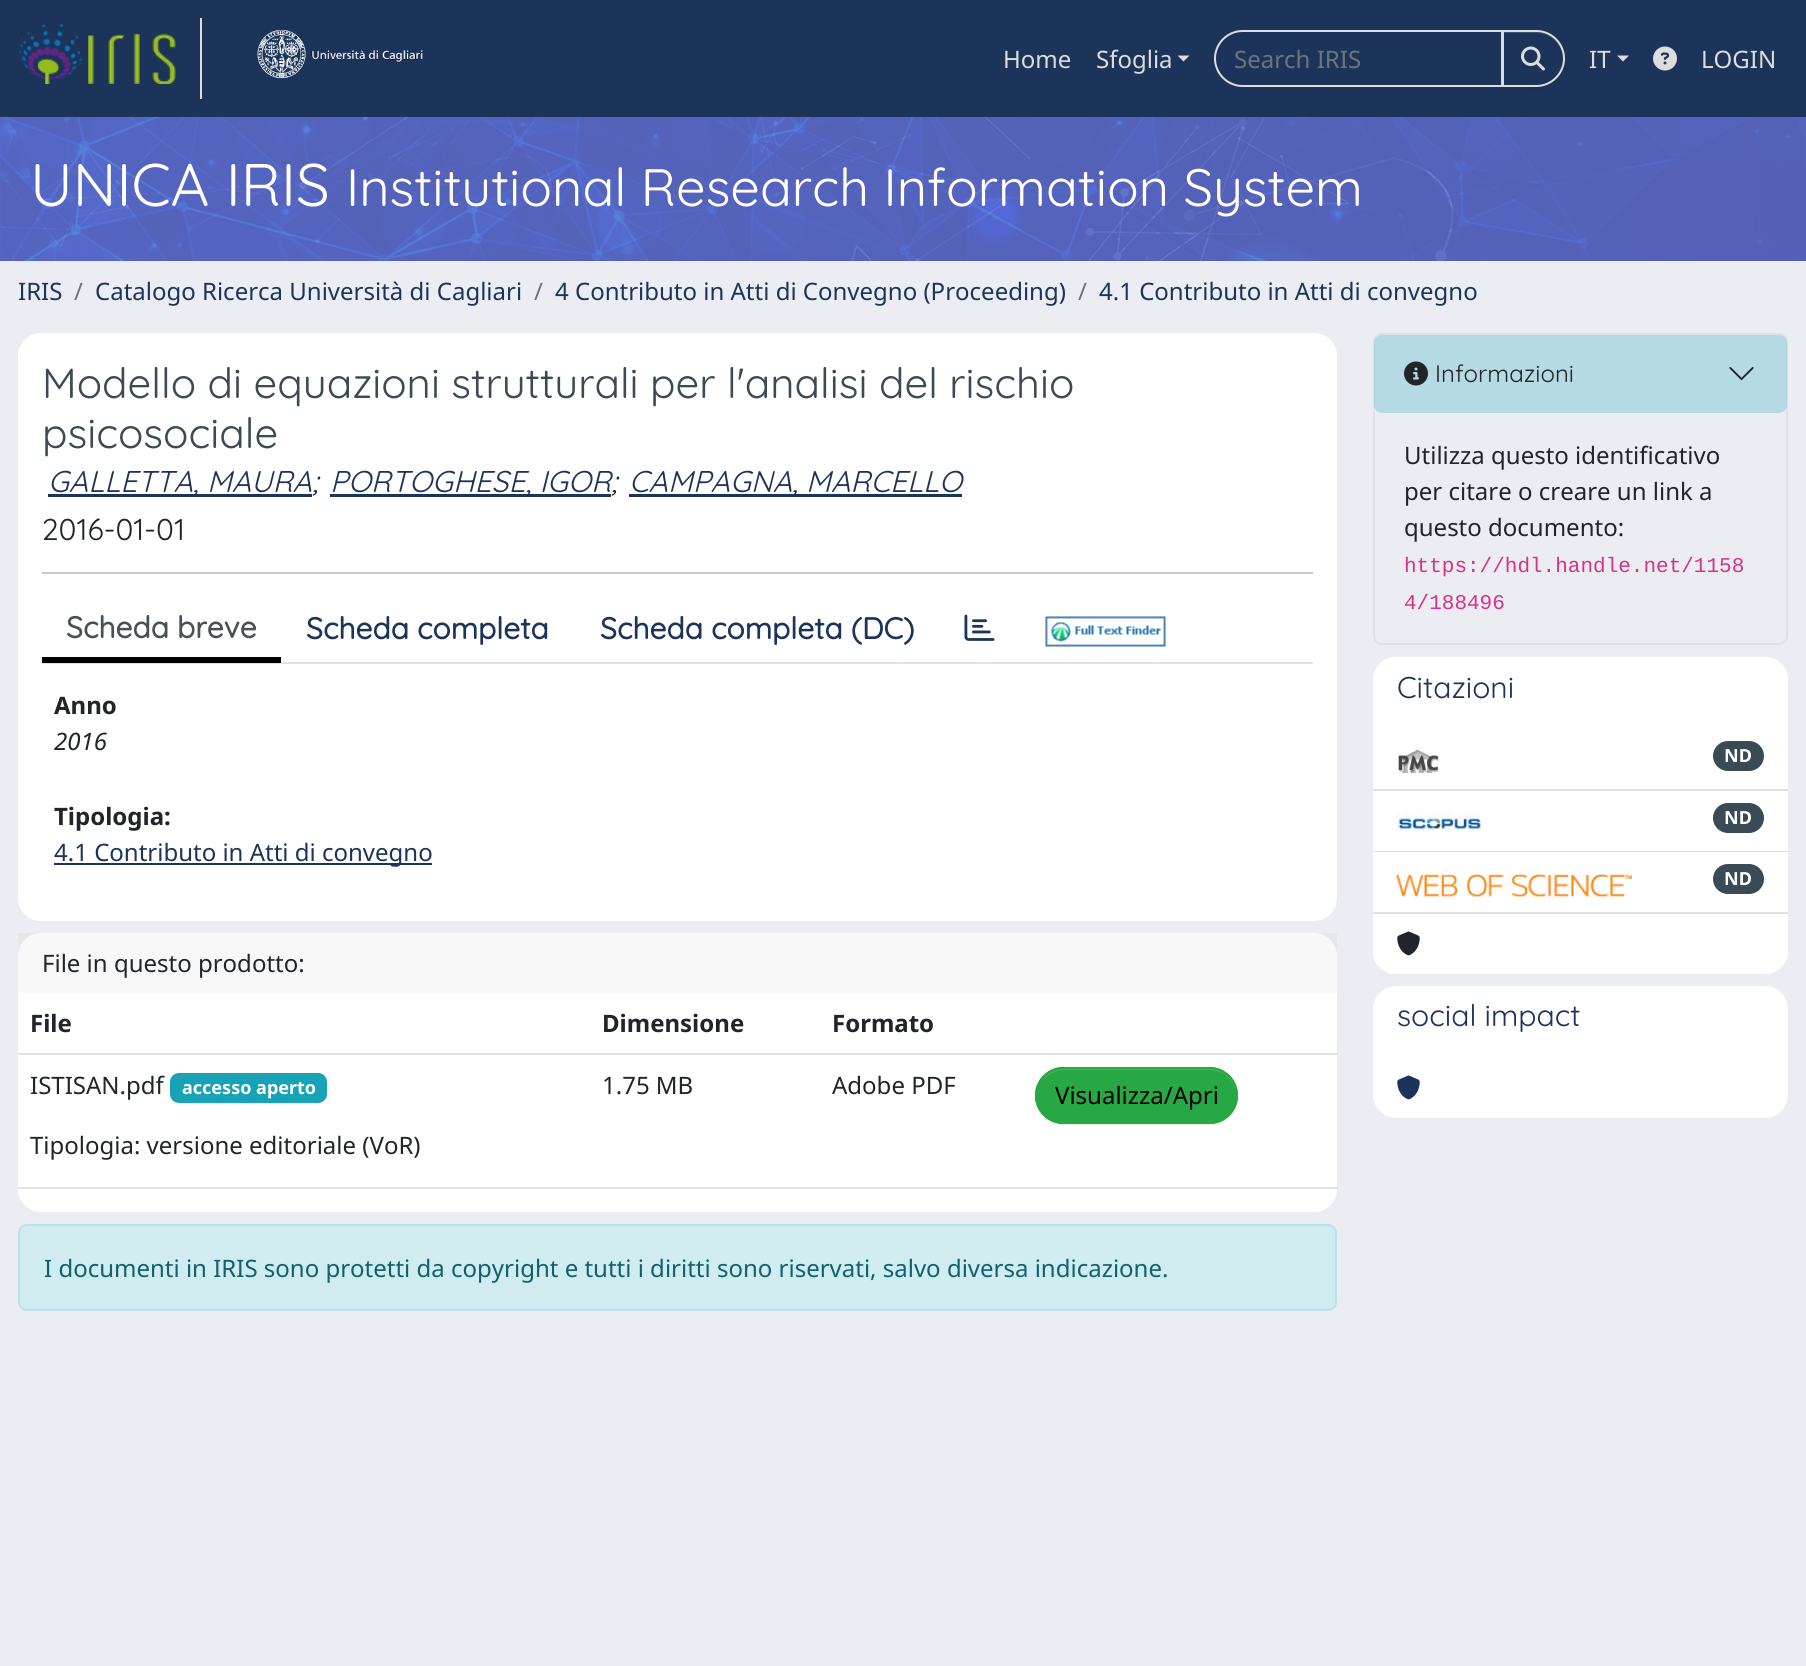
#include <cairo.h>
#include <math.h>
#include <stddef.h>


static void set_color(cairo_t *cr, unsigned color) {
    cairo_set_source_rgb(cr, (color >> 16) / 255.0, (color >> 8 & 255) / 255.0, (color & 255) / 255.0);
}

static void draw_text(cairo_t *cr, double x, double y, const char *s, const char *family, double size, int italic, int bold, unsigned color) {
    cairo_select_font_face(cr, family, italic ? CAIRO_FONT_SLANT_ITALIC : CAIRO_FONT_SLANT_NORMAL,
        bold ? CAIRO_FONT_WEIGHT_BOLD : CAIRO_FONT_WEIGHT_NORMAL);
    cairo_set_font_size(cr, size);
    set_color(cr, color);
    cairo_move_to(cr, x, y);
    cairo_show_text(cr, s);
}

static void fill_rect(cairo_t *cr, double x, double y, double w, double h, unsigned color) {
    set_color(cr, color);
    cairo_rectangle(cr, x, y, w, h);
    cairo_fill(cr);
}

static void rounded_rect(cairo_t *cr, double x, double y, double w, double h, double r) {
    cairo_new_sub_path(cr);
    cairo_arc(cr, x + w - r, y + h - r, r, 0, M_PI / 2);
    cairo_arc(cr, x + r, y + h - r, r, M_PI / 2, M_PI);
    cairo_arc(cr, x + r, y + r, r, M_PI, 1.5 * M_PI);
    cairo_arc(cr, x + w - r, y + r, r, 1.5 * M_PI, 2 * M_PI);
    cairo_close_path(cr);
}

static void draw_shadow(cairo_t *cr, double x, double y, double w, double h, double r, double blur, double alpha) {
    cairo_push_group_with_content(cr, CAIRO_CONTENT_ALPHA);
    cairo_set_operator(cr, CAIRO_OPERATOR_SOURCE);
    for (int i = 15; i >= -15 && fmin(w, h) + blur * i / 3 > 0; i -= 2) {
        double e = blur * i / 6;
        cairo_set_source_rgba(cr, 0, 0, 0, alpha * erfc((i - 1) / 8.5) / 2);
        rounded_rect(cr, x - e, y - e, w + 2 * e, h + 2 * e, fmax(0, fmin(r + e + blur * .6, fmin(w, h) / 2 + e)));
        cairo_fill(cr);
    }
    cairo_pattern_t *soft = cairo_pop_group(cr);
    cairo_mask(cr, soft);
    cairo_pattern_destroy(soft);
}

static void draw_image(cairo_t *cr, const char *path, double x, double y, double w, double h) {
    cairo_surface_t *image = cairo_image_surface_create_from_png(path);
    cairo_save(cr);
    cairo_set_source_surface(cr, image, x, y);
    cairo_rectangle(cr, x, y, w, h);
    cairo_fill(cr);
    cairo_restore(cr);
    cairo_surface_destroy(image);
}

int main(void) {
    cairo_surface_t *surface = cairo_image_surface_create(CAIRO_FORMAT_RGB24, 1806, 1666);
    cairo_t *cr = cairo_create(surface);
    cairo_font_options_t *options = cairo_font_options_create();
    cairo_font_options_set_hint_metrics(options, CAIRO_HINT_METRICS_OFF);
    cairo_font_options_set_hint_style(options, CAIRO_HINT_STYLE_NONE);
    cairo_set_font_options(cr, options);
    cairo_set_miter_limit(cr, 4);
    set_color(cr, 0xECEDF2);
    cairo_paint(cr);
    fill_rect(cr, 0, 0, 1806, 117, 0x1C345A);
    fill_rect(cr, 200, 18, 2, 81, 0xDDDDDD);
    draw_image(cr, "assets/img1.png", 18, 24, 158, 60);
    draw_image(cr, "assets/img2.png", 257, 29, 167, 50);
    draw_text(cr, 1003, 68, "Home", "Noto Sans", 24, 0, 0, 0xDDDDDD);
    draw_text(cr, 1096, 68, "Sfoglia", "Noto Sans", 24, 0, 0, 0xDDDDDD);
    cairo_new_path(cr);
    cairo_move_to(cr, 1177.5, 55.5);
    cairo_line_to(cr, 1189.5, 55.5);
    cairo_line_to(cr, 1183.5, 61.5);
    cairo_close_path(cr);
    cairo_fill(cr);
    cairo_new_path(cr);
    cairo_move_to(cr, 1242.5, 31);
    cairo_line_to(cr, 1502, 31);
    cairo_line_to(cr, 1502, 86);
    cairo_line_to(cr, 1242.5, 86);
    cairo_curve_to(cr, 1227.5, 86, 1215, 73.5, 1215, 58.5);
    cairo_curve_to(cr, 1215, 43.5, 1227.5, 31, 1242.5, 31);
    cairo_close_path(cr);
    cairo_stroke(cr);
    draw_text(cr, 1234, 68, "Search IRIS", "Noto Sans", 24, 0, 0, 0x6C757D);
    set_color(cr, 0x000000);
    draw_shadow(cr, 1502, 32, 63, 57, 28.5, 1, 0.07);
    set_color(cr, 0x1C345A);
    cairo_new_path(cr);
    cairo_move_to(cr, 1502, 30);
    cairo_line_to(cr, 1536.5, 30);
    cairo_curve_to(cr, 1552, 30, 1565, 43, 1565, 58.5);
    cairo_curve_to(cr, 1565, 74, 1552, 87, 1536.5, 87);
    cairo_line_to(cr, 1502, 87);
    cairo_close_path(cr);
    cairo_fill(cr);
    set_color(cr, 0x3E5273);
    cairo_new_path(cr);
    cairo_move_to(cr, 1503, 33);
    cairo_line_to(cr, 1536, 33);
    cairo_curve_to(cr, 1551, 33, 1563, 45, 1563, 59);
    cairo_curve_to(cr, 1563, 44, 1551, 32, 1536, 32);
    cairo_line_to(cr, 1503, 32);
    cairo_close_path(cr);
    cairo_fill(cr);
    cairo_new_path(cr);
    cairo_move_to(cr, 1503, 31);
    cairo_line_to(cr, 1536.5, 31);
    cairo_curve_to(cr, 1551.5, 31, 1564, 43.5, 1564, 58.5);
    cairo_curve_to(cr, 1564, 73.5, 1551.5, 86, 1536.5, 86);
    cairo_line_to(cr, 1503, 86);
    cairo_close_path(cr);
    set_color(cr, 0xDDDDDD);
    cairo_stroke(cr);
    draw_image(cr, "assets/img3.png", 1521, 46, 24, 25);
    draw_text(cr, 1589, 68, "IT", "Noto Sans", 24, 0, 0, 0xDDDDDD);
    cairo_new_path(cr);
    cairo_move_to(cr, 1617, 55.5);
    cairo_line_to(cr, 1629, 55.5);
    cairo_line_to(cr, 1623, 61.5);
    cairo_close_path(cr);
    cairo_fill(cr);
    draw_image(cr, "assets/img4.png", 1653, 46, 24, 25);
    draw_text(cr, 1701, 68, "LOGIN", "Noto Sans", 24, 0, 0, 0xDDDDDD);
    draw_image(cr, "assets/img5.png", 0, 117, 1806, 144);
    draw_text(cr, 30, 206, "UNICA IRIS", "Quicksand", 60, 0, 0, 0xFFFFFF);
    draw_text(cr, 346, 206, "Institutional Research Information System", "Quicksand", 52.5, 0, 0, 0xFFFFFF);
    draw_text(cr, 18, 300, "IRIS", "Noto Sans", 24, 0, 0, 0x1C345A);
    draw_text(cr, 74, 300, "/", "Noto Sans", 24, 0, 0, 0x6C757D);
    draw_text(cr, 95, 300, "Catalogo Ricerca Università di Cagliari", "Noto Sans", 24, 0, 0, 0x1C345A);
    draw_text(cr, 534, 300, "/", "Noto Sans", 24, 0, 0, 0x6C757D);
    draw_text(cr, 555, 300, "4 Contributo in Atti di Convegno (Proceeding)", "Noto Sans", 24, 0, 0, 0x1C345A);
    draw_text(cr, 1078, 300, "/", "Noto Sans", 24, 0, 0, 0x6C757D);
    draw_text(cr, 1099, 300, "4.1 Contributo in Atti di convegno", "Noto Sans", 24, 0, 0, 0x1C345A);
    set_color(cr, 0xFFFFFF);
    rounded_rect(cr, 18, 333, 1319, 588, 23);
    cairo_fill(cr);
    draw_text(cr, 42, 398, "Modello di equazioni strutturali per l'analisi del rischio", "Quicksand", 42, 0, 0, 0x3A4B55);
    draw_text(cr, 42, 448, "psicosociale", "Quicksand", 42, 0, 0, 0x3A4B55);
    fill_rect(cr, 48, 494, 264, 3, 0x1C345A);
    draw_text(cr, 48, 492, "GALLETTA, MAURA", "Quicksand", 30, 1, 0, 0x1C345A);
    draw_text(cr, 312, 492, ";", "Quicksand", 30, 1, 0, 0x212529);
    fill_rect(cr, 330, 494, 281, 3, 0x1C345A);
    draw_text(cr, 330, 492, "PORTOGHESE, IGOR", "Quicksand", 30, 1, 0, 0x1C345A);
    draw_text(cr, 611, 492, ";", "Quicksand", 30, 1, 0, 0x212529);
    fill_rect(cr, 629, 494, 333, 3, 0x1C345A);
    draw_text(cr, 629, 492, "CAMPAGNA, MARCELLO", "Quicksand", 30, 1, 0, 0x1C345A);
    draw_text(cr, 42, 540, "2016-01-01", "Quicksand", 30, 0, 0, 0x212529);
    fill_rect(cr, 42, 572, 1271, 2, 0xC8C9CA);
    fill_rect(cr, 42, 662, 1271, 2, 0xDEE2E6);
    fill_rect(cr, 42, 657, 239, 6, 0x000000);
    draw_text(cr, 66, 638, "Scheda breve", "Quicksand", 30, 0, 1, 0x495057);
    draw_text(cr, 306, 639, "Scheda completa", "Quicksand", 30, 0, 1, 0x1C345A);
    draw_text(cr, 600, 639, "Scheda completa (DC)", "Quicksand", 30, 0, 1, 0x1C345A);
    draw_image(cr, "assets/img6.png", 964, 614, 31, 27);
    draw_image(cr, "assets/img7.png", 1045, 616, 121, 31);
    draw_text(cr, 54, 714, "Anno", "Noto Sans", 24, 0, 1, 0x212529);
    draw_text(cr, 54, 750, "2016", "Noto Sans", 24, 1, 0, 0x212529);
    draw_text(cr, 54, 825, "Tipologia:", "Noto Sans", 24, 0, 1, 0x212529);
    fill_rect(cr, 54, 863, 378, 2, 0x1C345A);
    draw_text(cr, 54, 861, "4.1 Contributo in Atti di convegno", "Noto Sans", 24, 0, 0, 0x1C345A);
    set_color(cr, 0xFFFFFF);
    rounded_rect(cr, 18, 933, 1319, 279, 23);
    cairo_fill(cr);
    cairo_set_source_rgba(cr, 0, 0, 0, 0.03);
    cairo_rectangle(cr, 18, 933, 1319, 60);
    cairo_fill(cr);
    draw_text(cr, 42, 972, "File in questo prodotto:", "Noto Sans", 24, 0, 0, 0x212529);
    draw_text(cr, 30, 1032, "File", "Noto Sans", 24, 0, 1, 0x212529);
    draw_text(cr, 602, 1032, "Dimensione", "Noto Sans", 24, 0, 1, 0x212529);
    draw_text(cr, 832, 1032, "Formato", "Noto Sans", 24, 0, 1, 0x212529);
    fill_rect(cr, 18, 1053, 1320, 2, 0xDEE2E6);
    draw_text(cr, 30, 1094, "ISTISAN.pdf", "Noto Sans", 24, 0, 0, 0x212529);
    set_color(cr, 0x17A2B8);
    rounded_rect(cr, 170, 1073, 157, 30, 9);
    cairo_fill(cr);
    draw_text(cr, 182, 1094, "accesso aperto", "Noto Sans", 18, 0, 1, 0xFFFFFF);
    draw_text(cr, 30, 1154, "Tipologia: versione editoriale (VoR)", "Noto Sans", 24, 0, 0, 0x212529);
    draw_text(cr, 602, 1094, "1.75 MB", "Noto Sans", 24, 0, 0, 0x212529);
    draw_text(cr, 832, 1094, "Adobe PDF", "Noto Sans", 24, 0, 0, 0x212529);
    fill_rect(cr, 18, 1187, 1320, 2, 0xDEE2E6);
    set_color(cr, 0x000000);
    draw_shadow(cr, 1035, 1068, 203, 57, 28.5, 1, 0.07);
    set_color(cr, 0x28A745);
    rounded_rect(cr, 1035, 1067, 203, 57, 28.5);
    cairo_fill(cr);
    set_color(cr, 0x48B461);
    cairo_new_path(cr);
    cairo_move_to(cr, 1064, 1070);
    cairo_line_to(cr, 1209, 1070);
    cairo_curve_to(cr, 1224, 1070, 1236, 1082, 1236, 1096);
    cairo_line_to(cr, 1236, 1095);
    cairo_curve_to(cr, 1236, 1080, 1224, 1068, 1209, 1068);
    cairo_line_to(cr, 1064, 1068);
    cairo_curve_to(cr, 1053, 1068, 1044, 1075, 1039, 1084);
    cairo_curve_to(cr, 1044, 1076, 1054, 1070, 1064, 1070);
    cairo_close_path(cr);
    cairo_fill(cr);
    rounded_rect(cr, 1036, 1068, 201, 55, 27.5);
    set_color(cr, 0x28A745);
    cairo_stroke(cr);
    draw_text(cr, 1055, 1104, "Visualizza/Apri", "Noto Sans", 24, 0, 0, 0x000000);
    set_color(cr, 0xD1ECF1);
    rounded_rect(cr, 19, 1225, 1317, 85, 8);
    cairo_fill_preserve(cr);
    set_color(cr, 0xB9E3EA);
    cairo_stroke(cr);
    draw_text(cr, 44, 1277, "I documenti in IRIS sono protetti da copyright e tutti i diritti sono riservati, salvo diversa indicazione.", "Noto Sans", 24, 0, 0, 0x0E616E);
    rounded_rect(cr, 1374, 334, 413, 310, 8);
    set_color(cr, 0xDEE2E6);
    cairo_stroke(cr);
    cairo_set_source_rgba(cr, 0.09, 0.635, 0.722, 0.25);
    rounded_rect(cr, 1374, 335, 413, 78, 8);
    cairo_fill(cr);
    draw_image(cr, "assets/img8.png", 1404, 361, 24, 25);
    draw_text(cr, 1435, 382, "Informazioni", "Quicksand", 24, 0, 0, 0x212529);
    draw_image(cr, "assets/img9.png", 1729, 367, 25, 13);
    draw_text(cr, 1404, 464, "Utilizza questo identificativo", "Noto Sans", 24, 0, 0, 0x212529);
    draw_text(cr, 1404, 500, "per citare o creare un link a", "Noto Sans", 24, 0, 0, 0x212529);
    draw_text(cr, 1404, 536, "questo documento:", "Noto Sans", 24, 0, 0, 0x212529);
    draw_text(cr, 1404, 572, "https://hdl.handle.net/1158", "Liberation Mono", 21, 0, 0, 0xD63384);
    draw_text(cr, 1404, 609, "4/188496", "Liberation Mono", 21, 0, 0, 0xD63384);
    set_color(cr, 0xFFFFFF);
    rounded_rect(cr, 1373, 657, 415, 317, 23);
    cairo_fill(cr);
    cairo_new_path(cr);
    cairo_move_to(cr, 1396, 657);
    cairo_line_to(cr, 1765, 657);
    cairo_curve_to(cr, 1777.5, 657, 1788, 667.5, 1788, 680);
    cairo_line_to(cr, 1788, 729);
    cairo_line_to(cr, 1373, 729);
    cairo_line_to(cr, 1373, 680);
    cairo_curve_to(cr, 1373, 667.5, 1383.5, 657, 1396, 657);
    cairo_close_path(cr);
    cairo_fill(cr);
    draw_text(cr, 1397, 698, "Citazioni", "Quicksand", 30, 0, 0, 0x1C345A);
    fill_rect(cr, 1373, 789, 415, 2, 0xDFDFDF);
    draw_image(cr, "assets/img10.png", 1398, 749, 41, 25);
    set_color(cr, 0x3A4B55);
    rounded_rect(cr, 1713, 741, 51, 30, 15);
    cairo_fill(cr);
    draw_text(cr, 1724, 762, "ND", "Noto Sans", 18, 0, 1, 0xFFFFFF);
    fill_rect(cr, 1373, 851, 415, 1, 0xDFDFDF);
    draw_image(cr, "assets/img11.png", 1396, 811, 85, 20);
    set_color(cr, 0x3A4B55);
    rounded_rect(cr, 1713, 803, 51, 30, 15);
    cairo_fill(cr);
    draw_text(cr, 1724, 824, "ND", "Noto Sans", 18, 0, 1, 0xFFFFFF);
    fill_rect(cr, 1373, 912, 415, 2, 0xDFDFDF);
    draw_image(cr, "assets/img12.png", 1396, 874, 236, 23);
    set_color(cr, 0x3A4B55);
    rounded_rect(cr, 1713, 864, 51, 30, 15);
    cairo_fill(cr);
    draw_text(cr, 1724, 885, "ND", "Noto Sans", 18, 0, 1, 0xFFFFFF);
    cairo_new_path(cr);
    cairo_move_to(cr, 1373, 914);
    cairo_line_to(cr, 1788, 914);
    cairo_line_to(cr, 1788, 951);
    cairo_curve_to(cr, 1788, 963.5, 1777.5, 974, 1765, 974);
    cairo_line_to(cr, 1396, 974);
    cairo_curve_to(cr, 1383.5, 974, 1373, 963.5, 1373, 951);
    cairo_close_path(cr);
    cairo_fill(cr);
    draw_image(cr, "assets/img13.png", 1397, 931, 23, 25);
    cairo_new_path(cr);
    cairo_move_to(cr, 1396, 986);
    cairo_line_to(cr, 1765, 986);
    cairo_curve_to(cr, 1777.5, 986, 1788, 996.5, 1788, 1009);
    cairo_line_to(cr, 1788, 1058);
    cairo_line_to(cr, 1373, 1058);
    cairo_line_to(cr, 1373, 1009);
    cairo_curve_to(cr, 1373, 996.5, 1383.5, 986, 1396, 986);
    cairo_close_path(cr);
    cairo_fill(cr);
    draw_text(cr, 1397, 1026, "social impact", "Quicksand", 30, 0, 0, 0x1C345A);
    set_color(cr, 0xFFFFFF);
    cairo_new_path(cr);
    cairo_move_to(cr, 1373, 1058);
    cairo_line_to(cr, 1788, 1058);
    cairo_line_to(cr, 1788, 1095);
    cairo_curve_to(cr, 1788, 1107.5, 1777.5, 1118, 1765, 1118);
    cairo_line_to(cr, 1396, 1118);
    cairo_curve_to(cr, 1383.5, 1118, 1373, 1107.5, 1373, 1095);
    cairo_close_path(cr);
    cairo_fill(cr);
    draw_image(cr, "assets/img14.png", 1397, 1075, 23, 25);
    cairo_surface_write_to_png(surface, "output.png");
    cairo_font_options_destroy(options);
    cairo_destroy(cr);
    cairo_surface_destroy(surface);
    return 0;
}
